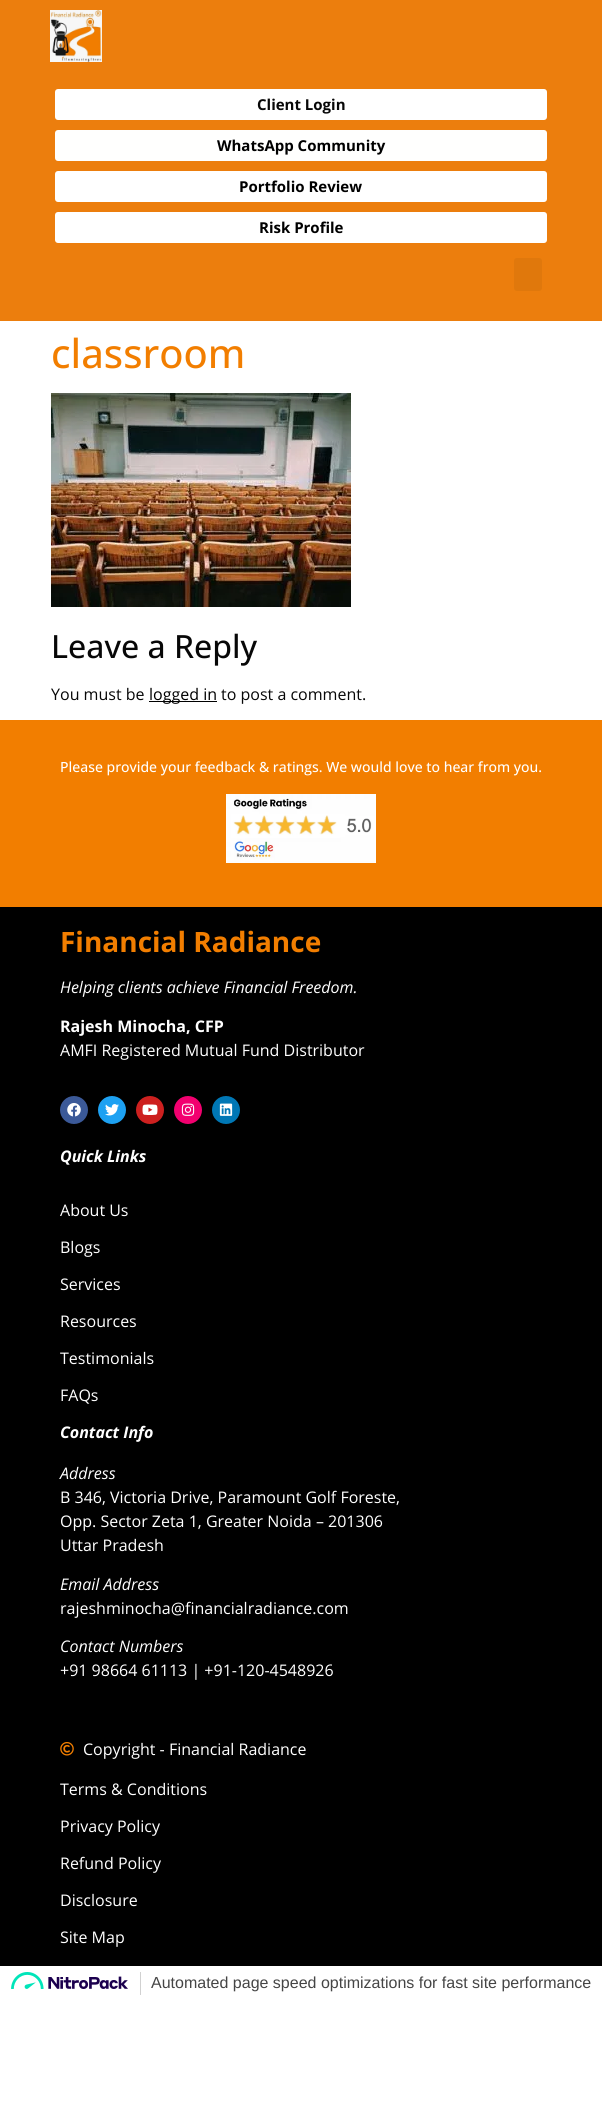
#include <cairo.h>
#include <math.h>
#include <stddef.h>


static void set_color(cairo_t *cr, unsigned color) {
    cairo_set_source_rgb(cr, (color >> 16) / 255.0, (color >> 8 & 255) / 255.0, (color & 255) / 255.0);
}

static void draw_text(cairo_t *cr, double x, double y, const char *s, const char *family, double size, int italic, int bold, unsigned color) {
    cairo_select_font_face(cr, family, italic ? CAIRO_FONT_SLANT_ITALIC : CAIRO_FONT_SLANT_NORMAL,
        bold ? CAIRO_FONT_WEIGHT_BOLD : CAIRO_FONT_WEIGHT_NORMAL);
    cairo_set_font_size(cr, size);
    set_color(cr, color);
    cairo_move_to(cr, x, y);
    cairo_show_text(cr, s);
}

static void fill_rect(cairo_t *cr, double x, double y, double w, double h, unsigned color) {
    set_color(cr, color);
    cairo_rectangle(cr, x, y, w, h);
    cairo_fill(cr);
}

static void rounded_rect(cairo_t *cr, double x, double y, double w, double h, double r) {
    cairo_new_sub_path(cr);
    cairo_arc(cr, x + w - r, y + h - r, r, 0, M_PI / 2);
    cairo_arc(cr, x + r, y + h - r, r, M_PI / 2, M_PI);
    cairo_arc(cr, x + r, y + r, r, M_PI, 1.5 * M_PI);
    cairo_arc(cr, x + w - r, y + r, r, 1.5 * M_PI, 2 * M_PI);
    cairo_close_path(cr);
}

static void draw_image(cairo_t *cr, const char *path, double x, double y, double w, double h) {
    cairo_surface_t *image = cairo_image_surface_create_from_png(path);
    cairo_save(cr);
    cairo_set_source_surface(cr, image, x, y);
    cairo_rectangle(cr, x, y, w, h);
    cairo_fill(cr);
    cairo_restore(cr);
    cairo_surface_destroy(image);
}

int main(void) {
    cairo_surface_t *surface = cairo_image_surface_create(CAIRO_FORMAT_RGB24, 602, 2122);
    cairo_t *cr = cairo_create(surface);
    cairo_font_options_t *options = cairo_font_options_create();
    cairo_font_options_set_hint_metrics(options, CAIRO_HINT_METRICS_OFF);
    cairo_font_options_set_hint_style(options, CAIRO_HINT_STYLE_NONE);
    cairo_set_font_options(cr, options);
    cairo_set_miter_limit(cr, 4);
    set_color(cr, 0xFFFFFF);
    cairo_paint(cr);
    fill_rect(cr, 0, 0, 602, 321, 0xEC7E0D);
    draw_image(cr, "assets/img1.png", 50, 10, 52, 52);
    set_color(cr, 0xFFFFFF);
    rounded_rect(cr, 55, 89, 492, 31, 3);
    cairo_fill(cr);
    draw_text(cr, 257, 110, "Client Login", "Open Sans", 15, 0, 1, 0x070707);
    set_color(cr, 0xFFFFFE);
    rounded_rect(cr, 55, 130, 492, 31, 3);
    cairo_fill(cr);
    draw_text(cr, 217, 151, "WhatsApp Community", "Open Sans", 15, 0, 1, 0x000000);
    set_color(cr, 0xFFFFFF);
    rounded_rect(cr, 55, 171, 492, 31, 3);
    cairo_fill(cr);
    draw_text(cr, 239, 192, "Portfolio Review", "Open Sans", 15, 0, 1, 0x000000);
    set_color(cr, 0xFFFFFF);
    rounded_rect(cr, 55, 212, 492, 31, 3);
    cairo_fill(cr);
    draw_text(cr, 259, 233, "Risk Profile", "Open Sans", 15, 0, 1, 0x000000);
    set_color(cr, 0xE0780C);
    rounded_rect(cr, 514, 258, 28, 33, 3);
    cairo_fill(cr);
    draw_text(cr, 51, 368, "classroom", "Open Sans Medium", 40, 0, 0, 0xF27E00);
    draw_image(cr, "assets/img2.png", 51, 393, 300, 214);
    draw_text(cr, 51, 658, "Leave a Reply", "Open Sans Medium", 32, 0, 0, 0x070707);
    draw_text(cr, 51, 700, "You must be", "Open Sans", 16, 0, 0, 0x070707);
    fill_rect(cr, 149, 701, 68, 1, 0x000000);
    draw_text(cr, 149, 700, "logged in", "Open Sans", 16, 0, 0, 0x000000);
    draw_text(cr, 221, 700, "to post a comment.", "Open Sans", 16, 0, 0, 0x070707);
    fill_rect(cr, 0, 720, 602, 187, 0xF27E00);
    draw_text(cr, 60, 772, "Please provide your feedback & ratings. We would love to hear from you.", "Open Sans Medium", 14, 0, 0, 0xFFFFFF);
    draw_image(cr, "assets/img3.png", 226, 794, 150, 69);
    fill_rect(cr, 0, 907, 602, 1059, 0x000000);
    draw_text(cr, 60, 952, "Financial Radiance", "Open Sans", 28, 0, 1, 0xF27E00);
    draw_text(cr, 60, 993, "Helping clients achieve Financial Freedom.", "Open Sans", 16, 1, 0, 0xFFFFFF);
    draw_text(cr, 60, 1032, "Rajesh Minocha, CFP", "Open Sans", 16, 0, 1, 0xFFFFFF);
    draw_text(cr, 60, 1056, "AMFI Registered Mutual Fund Distributor", "Open Sans", 16, 0, 0, 0xFFFFFF);
    set_color(cr, 0x3B5998);
    cairo_new_path(cr);
    cairo_arc(cr, 74, 1110, 14, 0, 2 * M_PI);
    cairo_fill(cr);
    draw_image(cr, "assets/img4.png", 67, 1103, 14, 14);
    set_color(cr, 0x1DA1F2);
    cairo_arc(cr, 112, 1110, 14, 0, 2 * M_PI);
    cairo_fill(cr);
    draw_image(cr, "assets/img5.png", 105, 1104, 14, 12);
    set_color(cr, 0xCD201F);
    cairo_arc(cr, 150, 1110, 14, 0, 2 * M_PI);
    cairo_fill(cr);
    draw_image(cr, "assets/img6.png", 142, 1104, 16, 11);
    set_color(cr, 0xF2006F);
    cairo_arc(cr, 188, 1110, 14, 0, 2 * M_PI);
    cairo_fill(cr);
    draw_image(cr, "assets/img7.png", 181, 1103, 14, 13);
    set_color(cr, 0x0077B5);
    cairo_arc(cr, 226, 1110, 14, 0, 2 * M_PI);
    cairo_fill(cr);
    draw_image(cr, "assets/img8.png", 219, 1103, 14, 13);
    draw_text(cr, 60, 1162, "Quick Links", "Open Sans", 16, 1, 1, 0xFFFFFF);
    draw_text(cr, 60, 1216, "About Us", "Open Sans", 16, 0, 0, 0xFFFFFF);
    draw_text(cr, 60, 1253, "Blogs", "Open Sans", 16, 0, 0, 0xFFFFFF);
    draw_text(cr, 60, 1290, "Services", "Open Sans", 16, 0, 0, 0xFFFFFF);
    draw_text(cr, 60, 1327, "Resources", "Open Sans", 16, 0, 0, 0xFFFFFF);
    draw_text(cr, 60, 1364, "Testimonials", "Open Sans", 16, 0, 0, 0xFFFFFF);
    draw_text(cr, 60, 1401, "FAQs", "Open Sans", 16, 0, 0, 0xFFFFFF);
    draw_text(cr, 60, 1438, "Contact Info", "Open Sans", 16, 1, 1, 0xFFFFFF);
    draw_text(cr, 60, 1479, "Address", "Open Sans", 16, 1, 0, 0xFFFFFF);
    draw_text(cr, 60, 1503, "B 346, Victoria Drive, Paramount Golf Foreste,", "Open Sans", 16, 0, 0, 0xFFFFFF);
    draw_text(cr, 60, 1527, "Opp. Sector Zeta 1, Greater Noida – 201306", "Open Sans", 16, 0, 0, 0xFFFFFF);
    draw_text(cr, 60, 1551, "Uttar Pradesh", "Open Sans", 16, 0, 0, 0xFFFFFF);
    draw_text(cr, 60, 1590, "Email Address", "Open Sans", 16, 1, 0, 0xFFFFFF);
    draw_text(cr, 60, 1614, "rajeshminocha@financialradiance.com", "Open Sans", 16, 0, 0, 0xFFFFFF);
    draw_text(cr, 60, 1652, "Contact Numbers", "Open Sans", 16, 1, 0, 0xFFFFFF);
    draw_text(cr, 60, 1676, "+91 98664 61113 | +91-120-4548926", "Open Sans", 16, 0, 0, 0xFFFFFF);
    draw_image(cr, "assets/img9.png", 60, 1742, 14, 14);
    draw_text(cr, 83, 1755, "Copyright - Financial Radiance", "Open Sans", 16, 0, 0, 0xFFFFFF);
    draw_text(cr, 60, 1795, "Terms & Conditions", "Open Sans", 16, 0, 0, 0xFFFFFF);
    draw_text(cr, 60, 1832, "Privacy Policy", "Open Sans", 16, 0, 0, 0xFFFFFF);
    draw_text(cr, 60, 1869, "Refund Policy", "Open Sans", 16, 0, 0, 0xFFFFFF);
    draw_text(cr, 60, 1906, "Disclosure", "Open Sans", 16, 0, 0, 0xFFFFFF);
    draw_text(cr, 60, 1943, "Site Map", "Open Sans", 16, 0, 0, 0xFFFFFF);
    fill_rect(cr, 140, 1972, 1, 23, 0xD1D1D1);
    draw_image(cr, "assets/img10.png", 11, 1972, 117, 17);
    draw_text(cr, 151, 1988, "Automated page speed optimizations for fast site performance", "Liberation Sans", 16, 0, 0, 0x454545);
    cairo_surface_write_to_png(surface, "output.png");
    cairo_font_options_destroy(options);
    cairo_destroy(cr);
    cairo_surface_destroy(surface);
    return 0;
}
